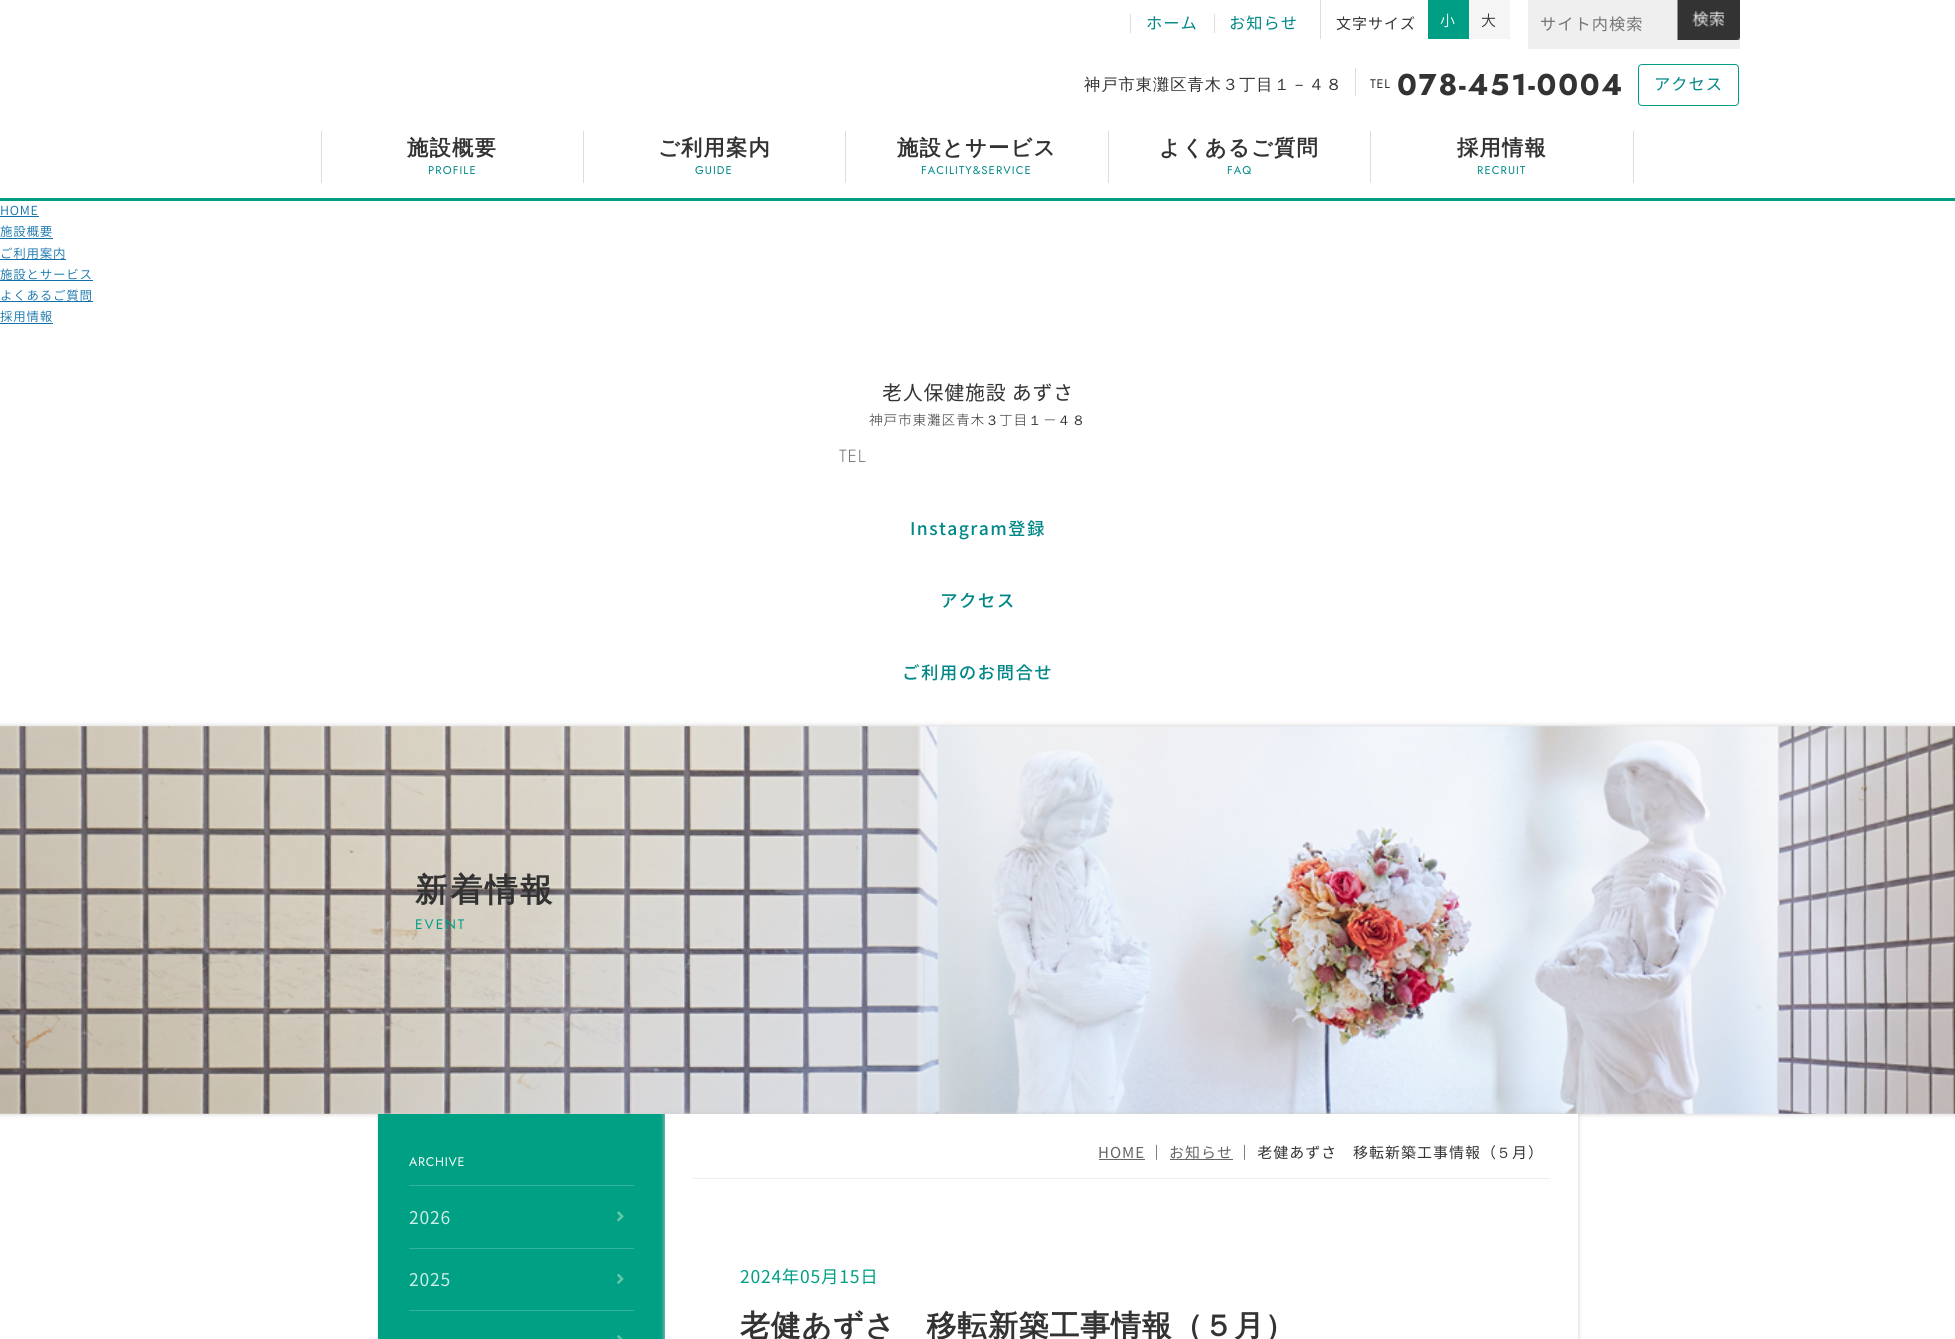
#include <cairo.h>
#include <math.h>
#include <stddef.h>


static void set_color(cairo_t *cr, unsigned color) {
    cairo_set_source_rgb(cr, (color >> 16) / 255.0, (color >> 8 & 255) / 255.0, (color & 255) / 255.0);
}

static void draw_spaced(cairo_t *cr, double x, double y, const char *s, double letter, double word) {
    cairo_move_to(cr, x, y);
    while (*s) {
        char ch[5] = {0};
        int n = 0;
        do ch[n++] = *s++; while ((*s & 0xC0) == 0x80);
        cairo_show_text(cr, ch);
        cairo_rel_move_to(cr, letter + word * (*ch == ' '), 0);
    }
}

static void fill_rect(cairo_t *cr, double x, double y, double w, double h, unsigned color) {
    set_color(cr, color);
    cairo_rectangle(cr, x, y, w, h);
    cairo_fill(cr);
}

static void rounded_rect(cairo_t *cr, double x, double y, double w, double h, double r) {
    cairo_new_sub_path(cr);
    cairo_arc(cr, x + w - r, y + h - r, r, 0, M_PI / 2);
    cairo_arc(cr, x + r, y + h - r, r, M_PI / 2, M_PI);
    cairo_arc(cr, x + r, y + r, r, M_PI, 1.5 * M_PI);
    cairo_arc(cr, x + w - r, y + r, r, 1.5 * M_PI, 2 * M_PI);
    cairo_close_path(cr);
}

static void draw_shadow(cairo_t *cr, double x, double y, double w, double h, double r, double blur, double alpha) {
    cairo_push_group_with_content(cr, CAIRO_CONTENT_ALPHA);
    cairo_set_operator(cr, CAIRO_OPERATOR_SOURCE);
    for (int i = 15; i >= -15 && fmin(w, h) + blur * i / 3 > 0; i -= 2) {
        double e = blur * i / 6;
        cairo_set_source_rgba(cr, 0, 0, 0, alpha * erfc((i - 1) / 8.5) / 2);
        rounded_rect(cr, x - e, y - e, w + 2 * e, h + 2 * e, fmax(0, fmin(r + e + blur * .6, fmin(w, h) / 2 + e)));
        cairo_fill(cr);
    }
    cairo_pattern_t *soft = cairo_pop_group(cr);
    cairo_mask(cr, soft);
    cairo_pattern_destroy(soft);
}

static void draw_image(cairo_t *cr, const char *path, double x, double y, double w, double h) {
    cairo_surface_t *image = cairo_image_surface_create_from_png(path);
    cairo_save(cr);
    cairo_set_source_surface(cr, image, x, y);
    cairo_rectangle(cr, x, y, w, h);
    cairo_fill(cr);
    cairo_restore(cr);
    cairo_surface_destroy(image);
}

int main(void) {
    cairo_surface_t *surface = cairo_image_surface_create(CAIRO_FORMAT_RGB24, 1955, 1339);
    cairo_t *cr = cairo_create(surface);
    cairo_font_options_t *options = cairo_font_options_create();
    cairo_font_options_set_hint_metrics(options, CAIRO_HINT_METRICS_OFF);
    cairo_font_options_set_hint_style(options, CAIRO_HINT_STYLE_NONE);
    cairo_set_font_options(cr, options);
    cairo_set_miter_limit(cr, 4);
    set_color(cr, 0xFFFFFF);
    cairo_paint(cr);
    fill_rect(cr, 0, 198, 1955, 3, 0x009F85);
    fill_rect(cr, 1130, 14, 1, 19, 0xDDDDDD);
    cairo_select_font_face(cr, "Noto Sans CJK JP", CAIRO_FONT_SLANT_NORMAL, CAIRO_FONT_WEIGHT_NORMAL);
    cairo_set_font_size(cr, 16.25);
    set_color(cr, 0x008787);
    draw_spaced(cr, 1146, 29, "ホーム", 1, 0);
    fill_rect(cr, 1214, 14, 1, 19, 0xDDDDDD);
    set_color(cr, 0x008787);
    draw_spaced(cr, 1229, 29, "お知らせ", 1, 0);
    fill_rect(cr, 1320, 0, 1, 39, 0xDDDDDD);
    cairo_set_font_size(cr, 15);
    set_color(cr, 0x333333);
    draw_spaced(cr, 1336, 29, "文字サイズ", 1, 0);
    fill_rect(cr, 1428, 0, 41, 39, 0x009F85);
    cairo_select_font_face(cr, "Noto Sans CJK JP Light", CAIRO_FONT_SLANT_NORMAL, CAIRO_FONT_WEIGHT_NORMAL);
    set_color(cr, 0xFFFFFF);
    draw_spaced(cr, 1440, 26, "小", 1, 0);
    fill_rect(cr, 1469, 0, 41, 39, 0xF5F5F5);
    set_color(cr, 0x333333);
    draw_spaced(cr, 1481, 26, "大", 1, 0);
    fill_rect(cr, 1528, 0, 212, 49, 0xEFEFEF);
    cairo_select_font_face(cr, "Noto Sans CJK JP", CAIRO_FONT_SLANT_NORMAL, CAIRO_FONT_WEIGHT_NORMAL);
    cairo_set_font_size(cr, 16.25);
    set_color(cr, 0x757575);
    draw_spaced(cr, 1540, 30, "サイト内検索", 1, 0);
    draw_image(cr, "assets/img1.png", 1677, 0, 63, 40);
    fill_rect(cr, 1355, 68, 1, 28, 0xDDDDDD);
    cairo_select_font_face(cr, "WenQuanYi Zen Hei Medium", CAIRO_FONT_SLANT_NORMAL, CAIRO_FONT_WEIGHT_NORMAL);
    set_color(cr, 0x333333);
    draw_spaced(cr, 1084, 90, "神戸市東灘区青木３丁目１－４８", 1, 0);
    cairo_select_font_face(cr, "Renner", CAIRO_FONT_SLANT_NORMAL, CAIRO_FONT_WEIGHT_NORMAL);
    cairo_set_font_size(cr, 12.5);
    draw_spaced(cr, 1370, 88, "TEL", 0.75, 0);
    cairo_select_font_face(cr, "Renner", CAIRO_FONT_SLANT_NORMAL, CAIRO_FONT_WEIGHT_BOLD);
    cairo_set_font_size(cr, 30);
    draw_spaced(cr, 1397, 95, "078-451-0004", 1.75, 0);
    rounded_rect(cr, 1638.5, 64.5, 100, 41, 3.5);
    set_color(cr, 0x009F85);
    cairo_set_line_width(cr, 1);
    cairo_stroke(cr);
    cairo_select_font_face(cr, "Noto Sans CJK JP", CAIRO_FONT_SLANT_NORMAL, CAIRO_FONT_WEIGHT_NORMAL);
    cairo_set_font_size(cr, 16.25);
    set_color(cr, 0x008787);
    draw_spaced(cr, 1654, 90, "アクセス", 1, 0);
    fill_rect(cr, 583, 131, 1, 52, 0xDDDDDD);
    fill_rect(cr, 321, 131, 1, 52, 0xDDDDDD);
    cairo_select_font_face(cr, "WenQuanYi Zen Hei", CAIRO_FONT_SLANT_NORMAL, CAIRO_FONT_WEIGHT_BOLD);
    cairo_set_font_size(cr, 21.25);
    set_color(cr, 0x333333);
    draw_spaced(cr, 407, 155, "施設概要", 1.25, 0);
    cairo_select_font_face(cr, "Renner", CAIRO_FONT_SLANT_NORMAL, CAIRO_FONT_WEIGHT_NORMAL);
    cairo_set_font_size(cr, 11.25);
    set_color(cr, 0x008787);
    draw_spaced(cr, 428, 174, "PROFILE", 1.1, 0);
    fill_rect(cr, 845, 131, 1, 52, 0xDDDDDD);
    cairo_select_font_face(cr, "WenQuanYi Zen Hei", CAIRO_FONT_SLANT_NORMAL, CAIRO_FONT_WEIGHT_BOLD);
    cairo_set_font_size(cr, 21.25);
    set_color(cr, 0x333333);
    draw_spaced(cr, 658, 155, "ご利用案内", 1.25, 0);
    cairo_select_font_face(cr, "Renner", CAIRO_FONT_SLANT_NORMAL, CAIRO_FONT_WEIGHT_NORMAL);
    cairo_set_font_size(cr, 11.25);
    set_color(cr, 0x008787);
    draw_spaced(cr, 695, 174, "GUIDE", 1.1, 0);
    fill_rect(cr, 1108, 131, 1, 52, 0xDDDDDD);
    cairo_select_font_face(cr, "WenQuanYi Zen Hei", CAIRO_FONT_SLANT_NORMAL, CAIRO_FONT_WEIGHT_BOLD);
    cairo_set_font_size(cr, 21.25);
    set_color(cr, 0x333333);
    draw_spaced(cr, 897, 155, "施設とサービス", 1.25, 0);
    cairo_select_font_face(cr, "Renner", CAIRO_FONT_SLANT_NORMAL, CAIRO_FONT_WEIGHT_NORMAL);
    cairo_set_font_size(cr, 11.25);
    set_color(cr, 0x008787);
    draw_spaced(cr, 921, 174, "FACILITY&SERVICE", 1.1, 0);
    fill_rect(cr, 1370, 131, 1, 52, 0xDDDDDD);
    cairo_select_font_face(cr, "WenQuanYi Zen Hei", CAIRO_FONT_SLANT_NORMAL, CAIRO_FONT_WEIGHT_BOLD);
    cairo_set_font_size(cr, 21.25);
    set_color(cr, 0x333333);
    draw_spaced(cr, 1159, 155, "よくあるご質問", 1.25, 0);
    cairo_select_font_face(cr, "Renner", CAIRO_FONT_SLANT_NORMAL, CAIRO_FONT_WEIGHT_NORMAL);
    cairo_set_font_size(cr, 11.25);
    set_color(cr, 0x008787);
    draw_spaced(cr, 1227, 174, "FAQ", 1.1, 0);
    fill_rect(cr, 1633, 131, 1, 52, 0xDDDDDD);
    cairo_select_font_face(cr, "WenQuanYi Zen Hei", CAIRO_FONT_SLANT_NORMAL, CAIRO_FONT_WEIGHT_BOLD);
    cairo_set_font_size(cr, 21.25);
    set_color(cr, 0x333333);
    draw_spaced(cr, 1457, 155, "採用情報", 1.25, 0);
    cairo_select_font_face(cr, "Renner", CAIRO_FONT_SLANT_NORMAL, CAIRO_FONT_WEIGHT_NORMAL);
    cairo_set_font_size(cr, 11.25);
    set_color(cr, 0x008787);
    draw_spaced(cr, 1477, 174, "RECRUIT", 1.1, 0);
    set_color(cr, 0xCCCCCC);
    draw_shadow(cr, 0, 726, 1955, 388, 0, 2.5, 1);
    draw_image(cr, "assets/img2.png", 0, 726, 1955, 388);
    cairo_select_font_face(cr, "WenQuanYi Zen Hei", CAIRO_FONT_SLANT_NORMAL, CAIRO_FONT_WEIGHT_BOLD);
    cairo_set_font_size(cr, 32.5);
    set_color(cr, 0x333333);
    draw_spaced(cr, 415, 901, "新着情報", 2.5, 0);
    cairo_select_font_face(cr, "Renner", CAIRO_FONT_SLANT_NORMAL, CAIRO_FONT_WEIGHT_NORMAL);
    cairo_set_font_size(cr, 13.75);
    set_color(cr, 0x009F85);
    draw_spaced(cr, 415, 929, "EVENT", 2, 0);
    set_color(cr, 0xCCCCCC);
    draw_shadow(cr, 378, 1114, 287, 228, 0, 1, 1);
    fill_rect(cr, 378, 1114, 287, 225, 0x00A085);
    cairo_set_font_size(cr, 12.5);
    set_color(cr, 0xFFFFFF);
    draw_spaced(cr, 409, 1166, "ARCHIVE", 0.75, 0);
    fill_rect(cr, 409, 1185, 225, 1, 0x33B39D);
    fill_rect(cr, 409, 1248, 225, 1, 0x33B39D);
    cairo_select_font_face(cr, "Noto Sans CJK JP", CAIRO_FONT_SLANT_NORMAL, CAIRO_FONT_WEIGHT_NORMAL);
    cairo_set_font_size(cr, 17.5);
    set_color(cr, 0xCCECE7);
    draw_spaced(cr, 409, 1224, "2026", 0.75, 0);
    draw_image(cr, "assets/img3.png", 617, 1211, 7, 11);
    fill_rect(cr, 409, 1310, 225, 1, 0x33B39D);
    set_color(cr, 0xCCECE7);
    draw_spaced(cr, 409, 1286, "2025", 0.75, 0);
    draw_image(cr, "assets/img4.png", 617, 1273, 7, 11);
    draw_image(cr, "assets/img5.png", 617, 1335, 6, 4);
    set_color(cr, 0xCCCCCC);
    draw_shadow(cr, 665, 1114, 913, 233, 0, 2.5, 1);
    fill_rect(cr, 665, 1114, 913, 225, 0xFFFFFF);
    fill_rect(cr, 693, 1178, 857, 1, 0xEEEEEE);
    cairo_set_font_size(cr, 15);
    set_color(cr, 0x666666);
    draw_spaced(cr, 1098, 1158, "HOME", 1, 0);
    fill_rect(cr, 1099, 1159, 46, 1, 0x666666);
    set_color(cr, 0x333333);
    draw_spaced(cr, 1149, 1158, "｜", 1, 0);
    fill_rect(cr, 1170, 1159, 63, 1, 0x666666);
    draw_spaced(cr, 1169, 1158, "お知らせ", 1, 0);
    set_color(cr, 0x333333);
    draw_spaced(cr, 1237, 1158, "｜ 老健あずさ", 1, 0);
    draw_spaced(cr, 1353, 1158, "移転新築工事情報（", 1, 0);
    cairo_select_font_face(cr, "WenQuanYi Zen Hei Medium", CAIRO_FONT_SLANT_NORMAL, CAIRO_FONT_WEIGHT_NORMAL);
    draw_spaced(cr, 1496, 1158, "５", 1, 0);
    cairo_select_font_face(cr, "Noto Sans CJK JP", CAIRO_FONT_SLANT_NORMAL, CAIRO_FONT_WEIGHT_NORMAL);
    draw_spaced(cr, 1512, 1158, "月）", 1, 0);
    cairo_set_font_size(cr, 17.5);
    set_color(cr, 0x009F85);
    draw_spaced(cr, 740, 1283, "2024年05月15日", 0.75, 0);
    cairo_select_font_face(cr, "WenQuanYi Zen Hei", CAIRO_FONT_SLANT_NORMAL, CAIRO_FONT_WEIGHT_BOLD);
    cairo_set_font_size(cr, 30);
    set_color(cr, 0x333333);
    draw_spaced(cr, 740, 1336, "老健あずさ　移転新築工事情報（５月）", 0.75, 0);
    cairo_select_font_face(cr, "Noto Sans CJK JP Light", CAIRO_FONT_SLANT_NORMAL, CAIRO_FONT_WEIGHT_NORMAL);
    cairo_set_font_size(cr, 12.5);
    set_color(cr, 0x1172AA);
    draw_spaced(cr, 0, 215, "HOME", 0.75, 0);
    fill_rect(cr, 0, 216, 39, 1, 0x1172AA);
    draw_spaced(cr, 0, 236, "施設概要", 0.75, 0);
    fill_rect(cr, 0, 238, 53, 1, 0x1172AA);
    draw_spaced(cr, 0, 258, "ご利用案内", 0.75, 0);
    fill_rect(cr, 0, 259, 66, 1, 0x1172AA);
    draw_spaced(cr, 0, 279, "施設とサービス", 0.75, 0);
    fill_rect(cr, 0, 280, 93, 1, 0x1172AA);
    draw_spaced(cr, 0, 300, "よくあるご質問", 0.75, 0);
    fill_rect(cr, 0, 301, 93, 1, 0x1172AA);
    draw_spaced(cr, 0, 321, "採用情報", 0.75, 0);
    fill_rect(cr, 0, 323, 53, 1, 0x1172AA);
    cairo_select_font_face(cr, "Noto Sans CJK JP", CAIRO_FONT_SLANT_NORMAL, CAIRO_FONT_WEIGHT_NORMAL);
    cairo_set_font_size(cr, 20);
    set_color(cr, 0x333333);
    draw_spaced(cr, 882, 400, "老人保健施設 あずさ", 0.75, 0);
    cairo_select_font_face(cr, "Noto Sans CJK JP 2 Light", CAIRO_FONT_SLANT_NORMAL, CAIRO_FONT_WEIGHT_NORMAL);
    cairo_set_font_size(cr, 13.75);
    draw_spaced(cr, 869, 425, "神戸市東灘区青木", 0.75, 0);
    cairo_select_font_face(cr, "WenQuanYi Zen Hei Medium", CAIRO_FONT_SLANT_NORMAL, CAIRO_FONT_WEIGHT_NORMAL);
    draw_spaced(cr, 985, 425, "３", 0.75, 0);
    cairo_select_font_face(cr, "Noto Sans CJK JP 2 Light", CAIRO_FONT_SLANT_NORMAL, CAIRO_FONT_WEIGHT_NORMAL);
    draw_spaced(cr, 999, 425, "丁目", 0.75, 0);
    cairo_select_font_face(cr, "WenQuanYi Zen Hei Medium", CAIRO_FONT_SLANT_NORMAL, CAIRO_FONT_WEIGHT_NORMAL);
    draw_spaced(cr, 1028, 425, "１", 0.75, 0);
    cairo_select_font_face(cr, "Noto Sans CJK JP 2 Light", CAIRO_FONT_SLANT_NORMAL, CAIRO_FONT_WEIGHT_NORMAL);
    draw_spaced(cr, 1043, 425, "－", 0.75, 0);
    cairo_select_font_face(cr, "WenQuanYi Zen Hei Medium", CAIRO_FONT_SLANT_NORMAL, CAIRO_FONT_WEIGHT_NORMAL);
    draw_spaced(cr, 1057, 425, "４８", 0.75, 0);
    cairo_select_font_face(cr, "Renner Thin", CAIRO_FONT_SLANT_NORMAL, CAIRO_FONT_WEIGHT_NORMAL);
    cairo_set_font_size(cr, 17.5);
    draw_spaced(cr, 839, 462, "TEL", 1, 0);
    cairo_select_font_face(cr, "Noto Sans CJK JP Medium", CAIRO_FONT_SLANT_NORMAL, CAIRO_FONT_WEIGHT_NORMAL);
    set_color(cr, 0x008787);
    draw_spaced(cr, 910, 535, "Instagram登録", 1.4, 0);
    draw_spaced(cr, 940, 607, "アクセス", 1.4, 0);
    draw_spaced(cr, 902, 679, "ご利用のお問合せ", 1.4, 0);
    cairo_surface_write_to_png(surface, "output.png");
    cairo_font_options_destroy(options);
    cairo_destroy(cr);
    cairo_surface_destroy(surface);
    return 0;
}
